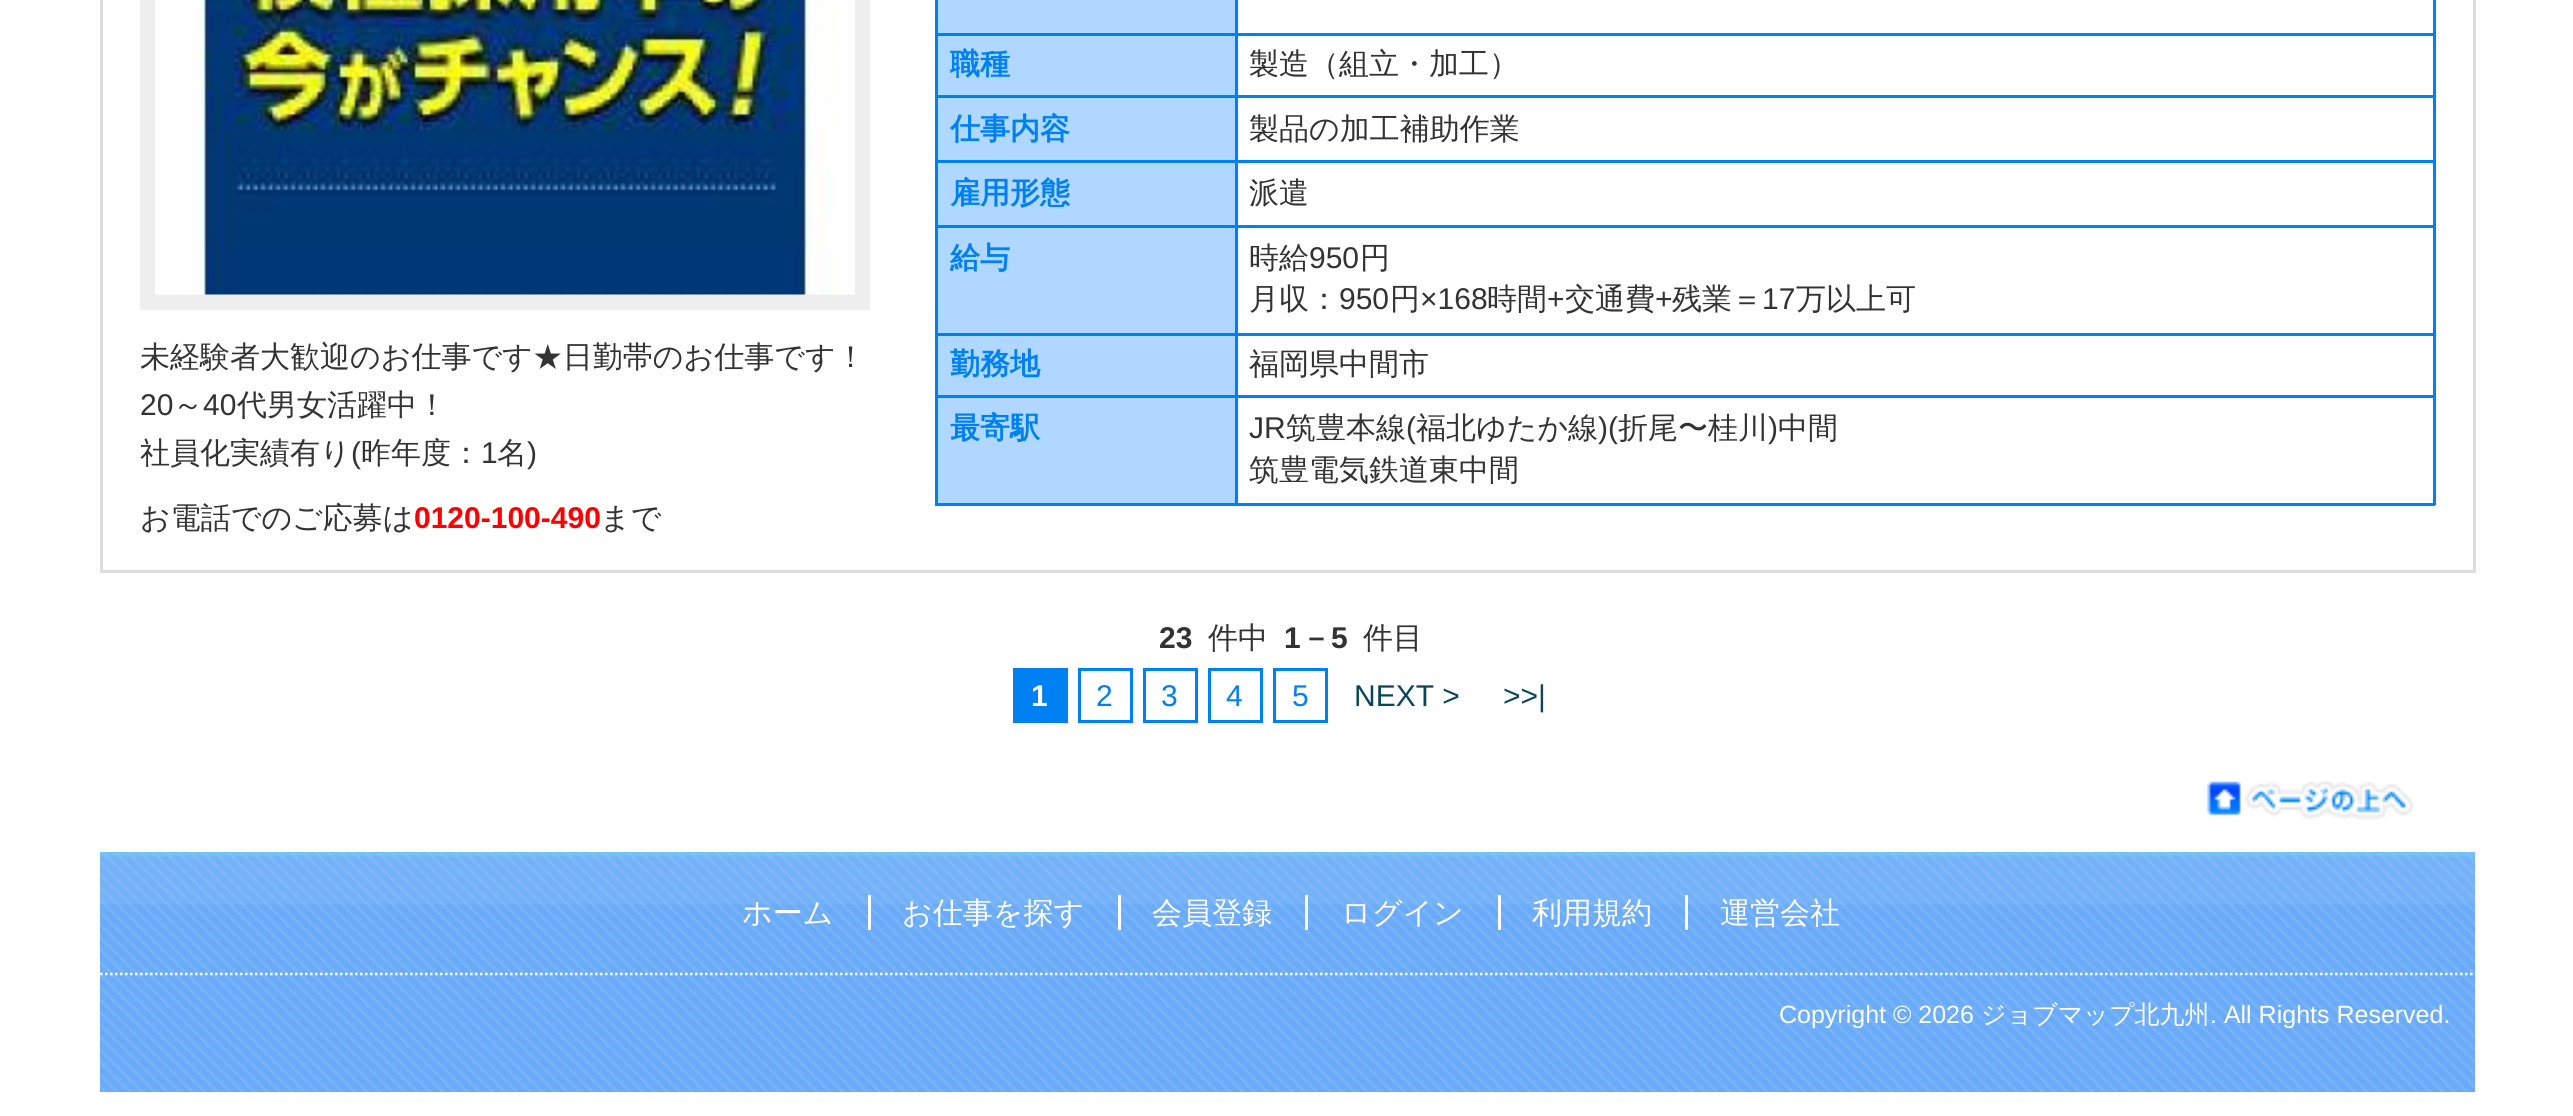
#include <cairo.h>
#include <math.h>
#include <stddef.h>


static void set_color(cairo_t *cr, unsigned color) {
    cairo_set_source_rgb(cr, (color >> 16) / 255.0, (color >> 8 & 255) / 255.0, (color & 255) / 255.0);
}

static void draw_text(cairo_t *cr, double x, double y, const char *s, const char *family, double size, int italic, int bold, unsigned color) {
    cairo_select_font_face(cr, family, italic ? CAIRO_FONT_SLANT_ITALIC : CAIRO_FONT_SLANT_NORMAL,
        bold ? CAIRO_FONT_WEIGHT_BOLD : CAIRO_FONT_WEIGHT_NORMAL);
    cairo_set_font_size(cr, size);
    set_color(cr, color);
    cairo_move_to(cr, x, y);
    cairo_show_text(cr, s);
}

static void fill_rect(cairo_t *cr, double x, double y, double w, double h, unsigned color) {
    set_color(cr, color);
    cairo_rectangle(cr, x, y, w, h);
    cairo_fill(cr);
}

static void draw_image(cairo_t *cr, const char *path, double x, double y, double w, double h) {
    cairo_surface_t *image = cairo_image_surface_create_from_png(path);
    cairo_save(cr);
    cairo_set_source_surface(cr, image, x, y);
    cairo_rectangle(cr, x, y, w, h);
    cairo_fill(cr);
    cairo_restore(cr);
    cairo_surface_destroy(image);
}

int main(void) {
    cairo_surface_t *surface = cairo_image_surface_create(CAIRO_FORMAT_RGB24, 2573, 1116);
    cairo_t *cr = cairo_create(surface);
    cairo_font_options_t *options = cairo_font_options_create();
    cairo_font_options_set_hint_metrics(options, CAIRO_HINT_METRICS_OFF);
    cairo_font_options_set_hint_style(options, CAIRO_HINT_STYLE_NONE);
    cairo_set_font_options(cr, options);
    cairo_set_miter_limit(cr, 4);
    set_color(cr, 0xFFFFFF);
    cairo_paint(cr);
    fill_rect(cr, 2473, 0, 3, 573, 0xDDDDDD);
    fill_rect(cr, 100, 570, 2375, 3, 0xDDDDDD);
    fill_rect(cr, 100, 0, 3, 573, 0xDDDDDD);
    fill_rect(cr, 140, 0, 730, 310, 0xEEEEEE);
    draw_image(cr, "assets/img1.png", 155, 294, 700, 1);
    draw_image(cr, "assets/img2.png", 155, 0, 700, 295);
    draw_text(cr, 140, 367, "未経験者大歓迎のお仕事です★日勤帯のお仕事です！", "WenQuanYi Zen Hei Medium", 30, 0, 0, 0x333333);
    draw_text(cr, 140, 415, "20", "Liberation Sans", 30, 0, 0, 0x333333);
    draw_text(cr, 173, 415, "～", "WenQuanYi Zen Hei Medium", 30, 0, 0, 0x333333);
    draw_text(cr, 203, 415, "40", "Liberation Sans", 30, 0, 0, 0x333333);
    draw_text(cr, 237, 415, "代男女活躍中！", "WenQuanYi Zen Hei Medium", 30, 0, 0, 0x333333);
    draw_text(cr, 140, 463, "社員化実績有り", "WenQuanYi Zen Hei Medium", 30, 0, 0, 0x333333);
    draw_text(cr, 351, 463, "(", "Liberation Sans", 30, 0, 0, 0x333333);
    draw_text(cr, 361, 463, "昨年度：", "WenQuanYi Zen Hei Medium", 30, 0, 0, 0x333333);
    draw_text(cr, 481, 463, "1", "Liberation Sans", 30, 0, 0, 0x333333);
    draw_text(cr, 497, 463, "名", "WenQuanYi Zen Hei Medium", 30, 0, 0, 0x333333);
    draw_text(cr, 527, 463, ")", "Liberation Sans", 30, 0, 0, 0x333333);
    draw_text(cr, 140, 528, "お電話でのご応募は", "WenQuanYi Zen Hei Medium", 30, 0, 0, 0x333333);
    draw_text(cr, 414, 528, "0120-100-490", "Liberation Sans", 30, 0, 1, 0xFF0000);
    draw_text(cr, 600, 528, "まで", "WenQuanYi Zen Hei Medium", 30, 0, 0, 0x333333);
    fill_rect(cr, 2433, 0, 3, 505, 0x0081F3);
    fill_rect(cr, 935, 503, 1500, 3, 0x0081F3);
    fill_rect(cr, 935, 0, 3, 505, 0x0081F3);
    fill_rect(cr, 938, 0, 297, 33, 0xAFD7FF);
    fill_rect(cr, 1235, 395, 3, 110, 0x0081F3);
    fill_rect(cr, 1235, 395, 1200, 3, 0x0081F3);
    fill_rect(cr, 1235, 333, 3, 65, 0x0081F3);
    fill_rect(cr, 1235, 333, 1200, 3, 0x0081F3);
    fill_rect(cr, 1235, 225, 3, 110, 0x0081F3);
    fill_rect(cr, 1235, 225, 1200, 3, 0x0081F3);
    fill_rect(cr, 1235, 160, 3, 68, 0x0081F3);
    fill_rect(cr, 1235, 160, 1200, 3, 0x0081F3);
    fill_rect(cr, 1235, 95, 3, 68, 0x0081F3);
    fill_rect(cr, 1235, 95, 1200, 3, 0x0081F3);
    fill_rect(cr, 1235, 33, 3, 65, 0x0081F3);
    fill_rect(cr, 1235, 33, 1200, 3, 0x0081F3);
    fill_rect(cr, 1235, 0, 3, 35, 0x0081F3);
    fill_rect(cr, 935, 33, 303, 3, 0x0081F3);
    fill_rect(cr, 938, 36, 297, 59, 0xAFD7FF);
    fill_rect(cr, 935, 95, 303, 3, 0x0081F3);
    draw_text(cr, 950, 74, "職種", "WenQuanYi Zen Hei", 30, 0, 1, 0x0081F3);
    draw_text(cr, 1249, 74, "製造（組立・加工）", "WenQuanYi Zen Hei Medium", 30, 0, 0, 0x333333);
    fill_rect(cr, 938, 98, 297, 62, 0xAFD7FF);
    fill_rect(cr, 935, 160, 303, 3, 0x0081F3);
    draw_text(cr, 950, 139, "仕事内容", "WenQuanYi Zen Hei", 30, 0, 1, 0x0081F3);
    draw_text(cr, 1249, 139, "製品の加工補助作業", "WenQuanYi Zen Hei Medium", 30, 0, 0, 0x333333);
    fill_rect(cr, 938, 163, 297, 62, 0xAFD7FF);
    fill_rect(cr, 935, 225, 303, 3, 0x0081F3);
    draw_text(cr, 950, 203, "雇用形態", "WenQuanYi Zen Hei", 30, 0, 1, 0x0081F3);
    draw_text(cr, 1249, 203, "派遣", "WenQuanYi Zen Hei Medium", 30, 0, 0, 0x333333);
    fill_rect(cr, 938, 228, 297, 105, 0xAFD7FF);
    fill_rect(cr, 935, 333, 303, 3, 0x0081F3);
    draw_text(cr, 950, 268, "給与", "WenQuanYi Zen Hei", 30, 0, 1, 0x0081F3);
    draw_text(cr, 1249, 268, "時給", "WenQuanYi Zen Hei Medium", 30, 0, 0, 0x333333);
    draw_text(cr, 1309, 268, "950", "Liberation Sans", 30, 0, 0, 0x333333);
    draw_text(cr, 1360, 268, "円", "WenQuanYi Zen Hei Medium", 30, 0, 0, 0x333333);
    draw_text(cr, 1249, 309, "月収：", "WenQuanYi Zen Hei Medium", 30, 0, 0, 0x333333);
    draw_text(cr, 1339, 309, "950", "Liberation Sans", 30, 0, 0, 0x333333);
    draw_text(cr, 1390, 309, "円", "WenQuanYi Zen Hei Medium", 30, 0, 0, 0x333333);
    draw_text(cr, 1420, 309, "×168", "Liberation Sans", 30, 0, 0, 0x333333);
    draw_text(cr, 1487, 309, "時間", "WenQuanYi Zen Hei Medium", 30, 0, 0, 0x333333);
    draw_text(cr, 1547, 309, "+", "Liberation Sans", 30, 0, 0, 0x333333);
    draw_text(cr, 1565, 309, "交通費", "WenQuanYi Zen Hei Medium", 30, 0, 0, 0x333333);
    draw_text(cr, 1655, 309, "+", "Liberation Sans", 30, 0, 0, 0x333333);
    draw_text(cr, 1672, 309, "残業＝", "WenQuanYi Zen Hei Medium", 30, 0, 0, 0x333333);
    draw_text(cr, 1762, 309, "17", "Liberation Sans", 30, 0, 0, 0x333333);
    draw_text(cr, 1796, 309, "万以上可", "WenQuanYi Zen Hei Medium", 30, 0, 0, 0x333333);
    fill_rect(cr, 938, 336, 297, 59, 0xAFD7FF);
    fill_rect(cr, 935, 395, 303, 3, 0x0081F3);
    draw_text(cr, 950, 374, "勤務地", "WenQuanYi Zen Hei", 30, 0, 1, 0x0081F3);
    draw_text(cr, 1249, 374, "福岡県中間市", "WenQuanYi Zen Hei Medium", 30, 0, 0, 0x333333);
    fill_rect(cr, 938, 398, 297, 105, 0xAFD7FF);
    draw_text(cr, 950, 438, "最寄駅", "WenQuanYi Zen Hei", 30, 0, 1, 0x0081F3);
    draw_text(cr, 1249, 438, "JR", "Liberation Sans", 30, 0, 0, 0x333333);
    draw_text(cr, 1286, 438, "筑豊本線", "WenQuanYi Zen Hei Medium", 30, 0, 0, 0x333333);
    draw_text(cr, 1406, 438, "(", "Liberation Sans", 30, 0, 0, 0x333333);
    draw_text(cr, 1416, 438, "福北ゆたか線", "WenQuanYi Zen Hei Medium", 30, 0, 0, 0x333333);
    draw_text(cr, 1598, 438, ")(", "Liberation Sans", 30, 0, 0, 0x333333);
    draw_text(cr, 1618, 438, "折尾〜桂川", "WenQuanYi Zen Hei Medium", 30, 0, 0, 0x333333);
    draw_text(cr, 1768, 438, ")", "Liberation Sans", 30, 0, 0, 0x333333);
    draw_text(cr, 1778, 438, "中間", "WenQuanYi Zen Hei Medium", 30, 0, 0, 0x333333);
    draw_text(cr, 1249, 480, "筑豊電気鉄道東中間", "WenQuanYi Zen Hei Medium", 30, 0, 0, 0x333333);
    draw_text(cr, 1159, 648, "23", "Liberation Sans", 30, 0, 1, 0x333333);
    draw_text(cr, 1208, 648, "件中", "WenQuanYi Zen Hei Medium", 30, 0, 0, 0x333333);
    draw_text(cr, 1284, 648, "1", "Liberation Sans", 30, 0, 1, 0x333333);
    draw_text(cr, 1301, 648, "－", "WenQuanYi Zen Hei", 30, 0, 1, 0x333333);
    draw_text(cr, 1331, 648, "5", "Liberation Sans", 30, 0, 1, 0x333333);
    draw_text(cr, 1363, 648, "件目", "WenQuanYi Zen Hei Medium", 30, 0, 0, 0x333333);
    fill_rect(cr, 1013, 668, 55, 55, 0x0081F3);
    draw_text(cr, 1031, 706, "1", "Liberation Sans", 30, 0, 1, 0xFFFFFF);
    cairo_rectangle(cr, 1079.5, 669.5, 52, 52);
    set_color(cr, 0x0081F3);
    cairo_set_line_width(cr, 3);
    cairo_stroke(cr);
    draw_text(cr, 1096, 706, "2", "Liberation Sans", 30, 0, 0, 0x0081F3);
    cairo_rectangle(cr, 1144.5, 669.5, 52, 52);
    cairo_stroke(cr);
    draw_text(cr, 1161, 706, "3", "Liberation Sans", 30, 0, 0, 0x0081F3);
    cairo_rectangle(cr, 1209.5, 669.5, 52, 52);
    cairo_stroke(cr);
    draw_text(cr, 1226, 706, "4", "Liberation Sans", 30, 0, 0, 0x0081F3);
    cairo_rectangle(cr, 1274.5, 669.5, 52, 52);
    cairo_stroke(cr);
    draw_text(cr, 1292, 706, "5", "Liberation Sans", 30, 0, 0, 0x0081F3);
    draw_text(cr, 1354, 706, "NEXT >", "Liberation Sans", 30, 0, 0, 0x0A465A);
    draw_text(cr, 1503, 706, ">>|", "Liberation Sans", 30, 0, 0, 0x0A465A);
    draw_image(cr, "assets/img3.png", 2206, 780, 208, 40);
    draw_image(cr, "assets/img4.png", 100, 852, 2375, 240);
    cairo_new_path(cr);
    cairo_move_to(cr, 100, 974);
    cairo_line_to(cr, 2475, 974);
    set_color(cr, 0xFFFFFF);
    cairo_set_line_width(cr, 2.5);
    cairo_set_dash(cr, (double[]){2.5, 2.5}, 2, 0);
    cairo_stroke(cr);
    draw_text(cr, 742, 923, "ホーム", "WenQuanYi Zen Hei Medium", 30, 0, 0, 0xFFFFFF);
    draw_text(cr, 902, 923, "お仕事を探す", "WenQuanYi Zen Hei Medium", 30, 0, 0, 0xFFFFFF);
    fill_rect(cr, 868, 895, 3, 35, 0xFFFFFF);
    draw_text(cr, 1152, 923, "会員登録", "WenQuanYi Zen Hei Medium", 30, 0, 0, 0xFFFFFF);
    fill_rect(cr, 1118, 895, 3, 35, 0xFFFFFF);
    draw_text(cr, 1341, 923, "ログイン", "WenQuanYi Zen Hei Medium", 30, 0, 0, 0xFFFFFF);
    fill_rect(cr, 1305, 895, 3, 35, 0xFFFFFF);
    draw_text(cr, 1532, 923, "利用規約", "WenQuanYi Zen Hei Medium", 30, 0, 0, 0xFFFFFF);
    fill_rect(cr, 1498, 895, 3, 35, 0xFFFFFF);
    draw_text(cr, 1720, 923, "運営会社", "WenQuanYi Zen Hei Medium", 30, 0, 0, 0xFFFFFF);
    fill_rect(cr, 1685, 895, 3, 35, 0xFFFFFF);
    draw_text(cr, 1779, 1023, "Copyright © 2026", "Liberation Sans", 25, 0, 0, 0xFFFFFF);
    draw_text(cr, 1981, 1023, "ジョブマップ北九州", "WenQuanYi Zen Hei Medium", 25, 0, 0, 0xFFFFFF);
    draw_text(cr, 2210, 1023, ". All Rights Reserved.", "Liberation Sans", 25, 0, 0, 0xFFFFFF);
    cairo_surface_write_to_png(surface, "output.png");
    cairo_font_options_destroy(options);
    cairo_destroy(cr);
    cairo_surface_destroy(surface);
    return 0;
}
